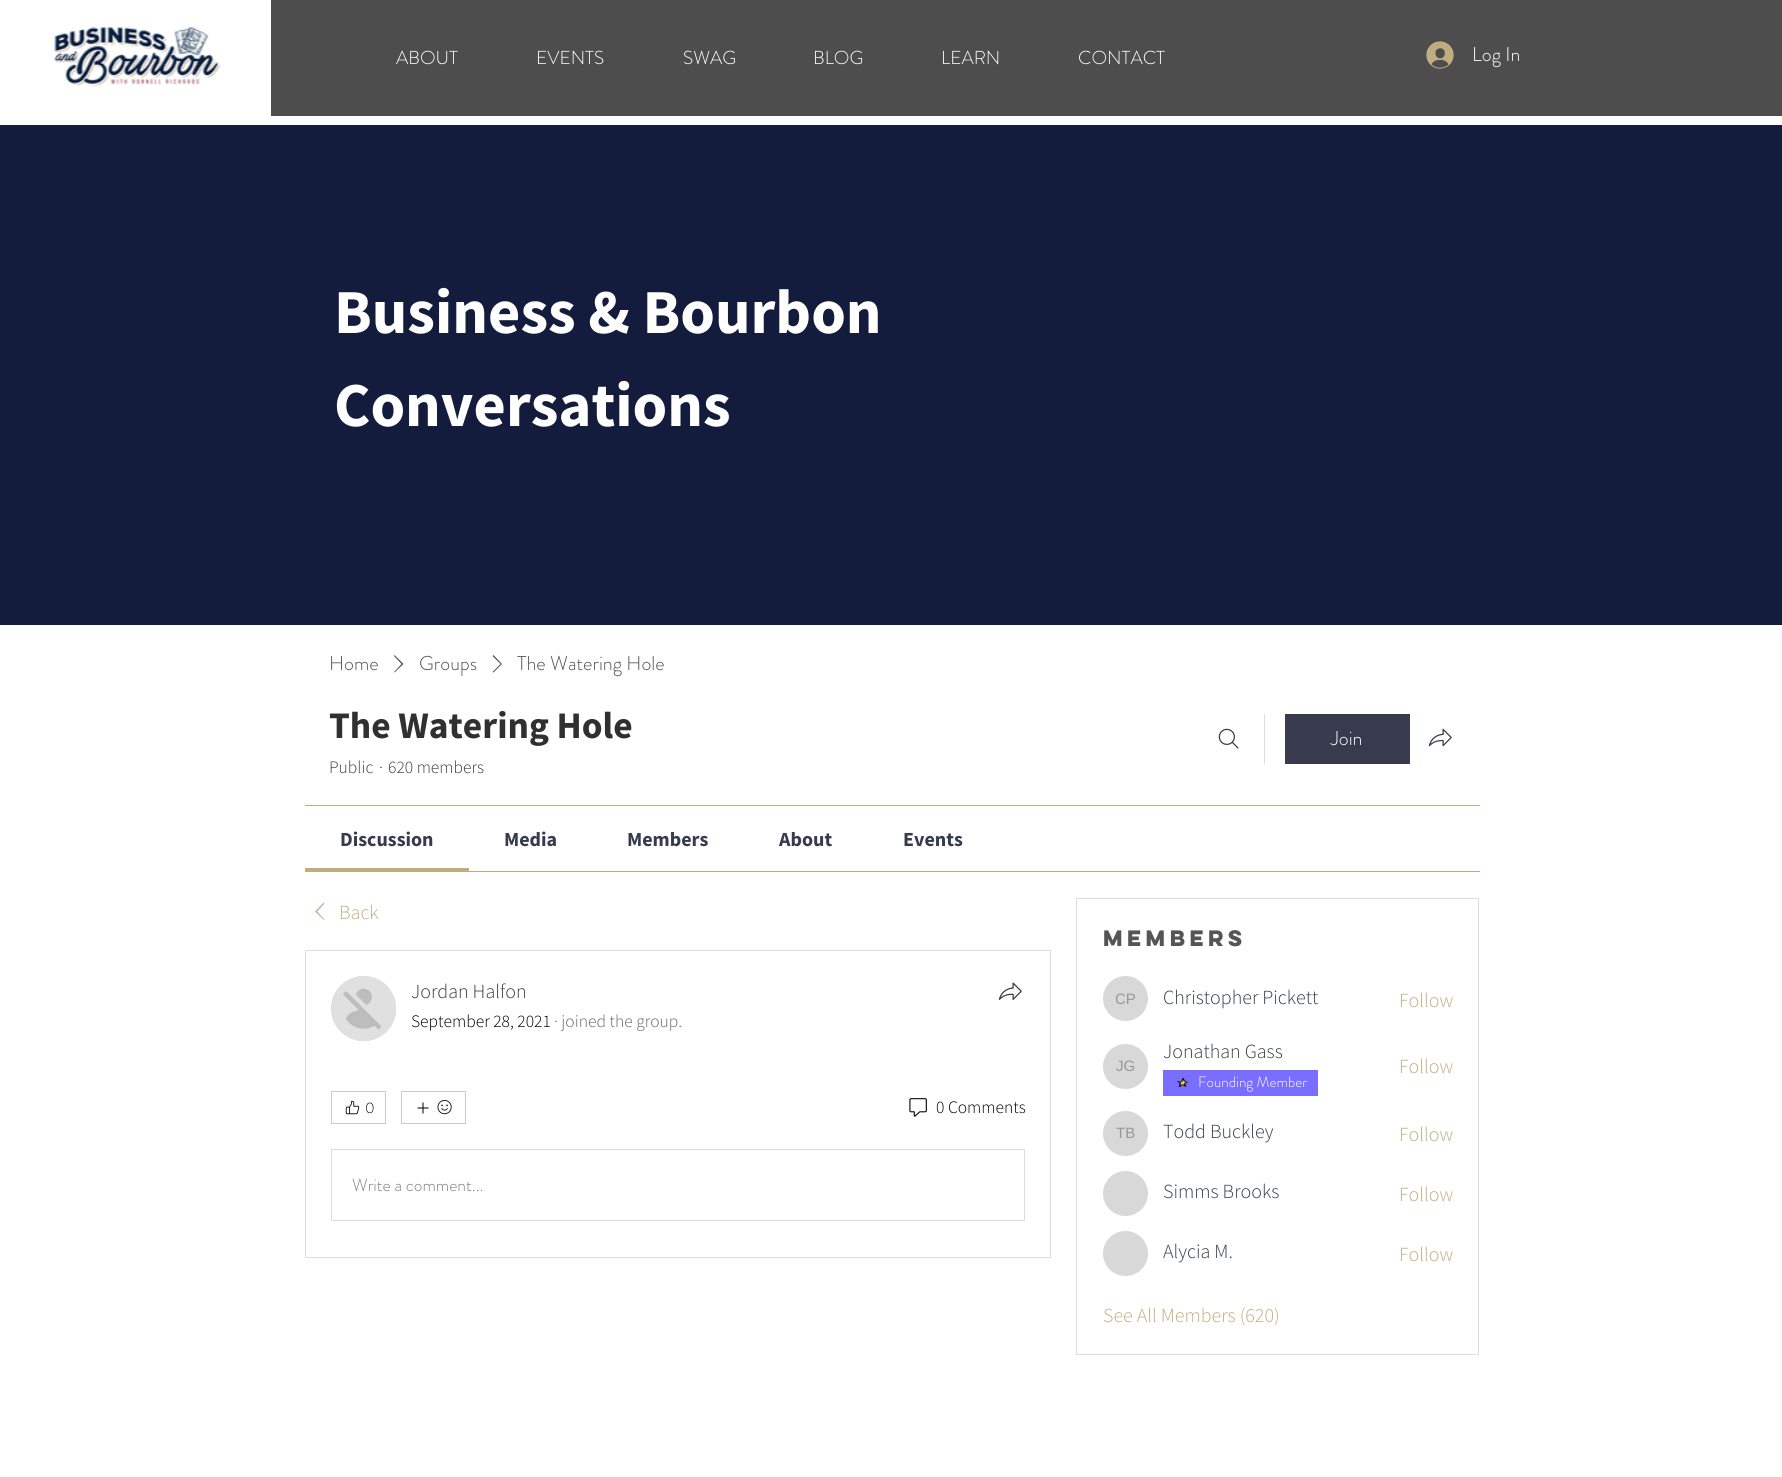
#include <cairo.h>
#include <math.h>
#include <stddef.h>


static void set_color(cairo_t *cr, unsigned color) {
    cairo_set_source_rgb(cr, (color >> 16) / 255.0, (color >> 8 & 255) / 255.0, (color & 255) / 255.0);
}

static void draw_text(cairo_t *cr, double x, double y, const char *s, const char *family, double size, int italic, int bold, unsigned color) {
    cairo_select_font_face(cr, family, italic ? CAIRO_FONT_SLANT_ITALIC : CAIRO_FONT_SLANT_NORMAL,
        bold ? CAIRO_FONT_WEIGHT_BOLD : CAIRO_FONT_WEIGHT_NORMAL);
    cairo_set_font_size(cr, size);
    set_color(cr, color);
    cairo_move_to(cr, x, y);
    cairo_show_text(cr, s);
}

static void fill_rect(cairo_t *cr, double x, double y, double w, double h, unsigned color) {
    set_color(cr, color);
    cairo_rectangle(cr, x, y, w, h);
    cairo_fill(cr);
}

static void draw_image(cairo_t *cr, const char *path, double x, double y, double w, double h) {
    cairo_surface_t *image = cairo_image_surface_create_from_png(path);
    cairo_save(cr);
    cairo_set_source_surface(cr, image, x, y);
    cairo_rectangle(cr, x, y, w, h);
    cairo_fill(cr);
    cairo_restore(cr);
    cairo_surface_destroy(image);
}

int main(void) {
    cairo_surface_t *surface = cairo_image_surface_create(CAIRO_FORMAT_RGB24, 1782, 1477);
    cairo_t *cr = cairo_create(surface);
    cairo_font_options_t *options = cairo_font_options_create();
    cairo_font_options_set_hint_metrics(options, CAIRO_HINT_METRICS_OFF);
    cairo_font_options_set_hint_style(options, CAIRO_HINT_STYLE_NONE);
    cairo_set_font_options(cr, options);
    cairo_set_miter_limit(cr, 4);
    set_color(cr, 0xFFFFFF);
    cairo_paint(cr);
    fill_rect(cr, 271, 0, 1511, 116, 0x4D4D4D);
    draw_image(cr, "assets/img1.png", 54, 26, 167, 61);
    draw_text(cr, 396, 64, "ABOUT", "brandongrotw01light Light", 18.75, 0, 0, 0xFFFFFF);
    draw_text(cr, 536, 64, "EVENTS", "brandongrotw01light Light", 18.75, 0, 0, 0xFFFFFF);
    draw_text(cr, 683, 64, "SWAG", "brandongrotw01light Light", 18.75, 0, 0, 0xFFFFFF);
    draw_text(cr, 813, 64, "BLOG", "brandongrotw01light Light", 18.75, 0, 0, 0xFFFFFF);
    draw_text(cr, 941, 64, "LEARN", "brandongrotw01light Light", 18.75, 0, 0, 0xFFFFFF);
    draw_text(cr, 1078, 64, "CONTACT", "brandongrotw01light Light", 18.75, 0, 0, 0xFFFFFF);
    draw_image(cr, "assets/img2.png", 1426, 41, 28, 28);
    draw_text(cr, 1472, 61, "Log In", "brandongrotw01light Light", 20, 0, 0, 0xFFFFFF);
    fill_rect(cr, 0, 125, 1782, 500, 0x131C3C);
    draw_text(cr, 334, 333, "Business & Bourbon", "Source Sans Pro", 62.5, 0, 1, 0xFFFFFF);
    draw_text(cr, 334, 426, "Conversations", "Source Sans Pro", 62.5, 0, 1, 0xFFFFFF);
    draw_text(cr, 329, 670, "Home", "brandongrotw01light Light", 20, 0, 0, 0x555555);
    cairo_set_fill_rule(cr, CAIRO_FILL_RULE_EVEN_ODD);
    cairo_new_path(cr);
    cairo_move_to(cr, 394.5, 655);
    cairo_line_to(cr, 403.5, 664);
    cairo_line_to(cr, 394.5, 672.5);
    cairo_line_to(cr, 394, 672);
    cairo_line_to(cr, 401.5, 664);
    cairo_line_to(cr, 394, 656);
    cairo_close_path(cr);
    cairo_fill(cr);
    draw_text(cr, 419, 670, "Groups", "brandongrotw01light Light", 20, 0, 0, 0x555555);
    cairo_new_path(cr);
    cairo_move_to(cr, 493.5, 655);
    cairo_line_to(cr, 502, 664);
    cairo_line_to(cr, 493.5, 672.5);
    cairo_line_to(cr, 492.5, 672);
    cairo_line_to(cr, 500.5, 664);
    cairo_line_to(cr, 492.5, 656);
    cairo_close_path(cr);
    cairo_fill(cr);
    draw_text(cr, 517, 670, "The Watering Hole", "brandongrotw01light Light", 20, 0, 0, 0x555555);
    draw_text(cr, 329, 738, "The Watering Hole", "Source Sans Pro", 37.5, 0, 1, 0x303030);
    draw_text(cr, 329, 773, "Public", "Source Sans Pro Light", 17.5, 0, 0, 0x373B4D);
    draw_text(cr, 379, 773, "·", "Source Sans Pro Light", 17.5, 0, 0, 0x373B4D);
    draw_text(cr, 388, 773, "620 members", "Source Sans Pro Light", 17.5, 0, 0, 0x373B4D);
    draw_image(cr, "assets/img3.png", 1218, 728, 21, 21);
    fill_rect(cr, 1264, 714, 1, 50, 0xDDDDDD);
    fill_rect(cr, 1285, 714, 125, 50, 0x373B4D);
    draw_text(cr, 1331, 745, "Join", "brandongrotw01light Light", 20, 0, 0, 0xFFFFFF);
    draw_image(cr, "assets/img4.png", 1428, 728, 24, 19);
    fill_rect(cr, 305, 805, 1175, 1, 0xBFAD7F);
    fill_rect(cr, 305, 871, 1175, 1, 0xBFAD7F);
    fill_rect(cr, 305, 868, 164, 3, 0xBFAD7F);
    draw_text(cr, 340, 846, "Discussion", "Source Sans Pro", 20, 0, 1, 0x373B4D);
    draw_text(cr, 504, 846, "Media", "Source Sans Pro", 20, 0, 1, 0x373B4D);
    draw_text(cr, 627, 846, "Members", "Source Sans Pro", 20, 0, 1, 0x373B4D);
    draw_text(cr, 779, 846, "About", "Source Sans Pro", 20, 0, 1, 0x373B4D);
    draw_text(cr, 903, 846, "Events", "Source Sans Pro", 20, 0, 1, 0x373B4D);
    set_color(cr, 0xBFAD7F);
    cairo_new_path(cr);
    cairo_move_to(cr, 324, 902.5);
    cairo_line_to(cr, 324.5, 903.5);
    cairo_line_to(cr, 317, 911.5);
    cairo_line_to(cr, 324.5, 919.5);
    cairo_line_to(cr, 324, 920);
    cairo_line_to(cr, 315, 911.5);
    cairo_close_path(cr);
    cairo_fill(cr);
    draw_text(cr, 339, 919, "Back", "Source Sans Pro Light", 20, 0, 0, 0xBFAD7F);
    cairo_rectangle(cr, 305.5, 950.5, 745, 307);
    set_color(cr, 0xDDDDDD);
    cairo_set_line_width(cr, 1);
    cairo_stroke(cr);
    set_color(cr, 0xD8D8D8);
    cairo_arc(cr, 363.5, 1008.5, 32.5, 0, 2 * M_PI);
    cairo_fill(cr);
    draw_image(cr, "assets/img5.png", 332, 976, 64, 65);
    draw_text(cr, 411, 998, "Jordan Halfon", "Source Sans Pro Light", 20, 0, 0, 0x373B4D);
    draw_text(cr, 411, 1027, "September 28, 2021", "Source Sans Pro Light", 17.5, 0, 0, 0x000000);
    draw_text(cr, 554, 1027, "· joined the group.", "Source Sans Pro Light", 17.5, 0, 0, 0x666666);
    draw_image(cr, "assets/img6.png", 998, 982, 24, 18);
    cairo_rectangle(cr, 331.5, 1091.5, 54, 32);
    set_color(cr, 0xCCCCCC);
    cairo_stroke(cr);
    draw_image(cr, "assets/img7.png", 345, 1100, 15, 15);
    draw_text(cr, 365, 1113, "0", "brandongrotw01light Light", 15, 0, 0, 0x000000);
    cairo_rectangle(cr, 401.5, 1091.5, 64, 32);
    set_color(cr, 0xCCCCCC);
    cairo_stroke(cr);
    draw_image(cr, "assets/img8.png", 417, 1102, 12, 12);
    draw_image(cr, "assets/img9.png", 437, 1100, 15, 15);
    draw_image(cr, "assets/img10.png", 909, 1098, 18, 19);
    draw_text(cr, 936, 1113, "0 Comments", "Source Sans Pro Light", 17.5, 0, 0, 0x000000);
    cairo_rectangle(cr, 331.5, 1149.5, 693, 71);
    set_color(cr, 0xDDDDDD);
    cairo_stroke(cr);
    draw_text(cr, 352, 1191, "Write a comment...", "brandongrotw01light Light", 17.5, 0, 0, 0x808080);
    cairo_rectangle(cr, 1076.5, 898.5, 402, 456);
    set_color(cr, 0xDDDDDD);
    cairo_stroke(cr);
    draw_text(cr, 1103, 946, "Members", "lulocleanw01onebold", 20, 0, 1, 0x555555);
    set_color(cr, 0xD8D8D8);
    cairo_new_path(cr);
    cairo_arc(cr, 1125.5, 998.5, 22.5, 0, 2 * M_PI);
    cairo_fill(cr);
    draw_text(cr, 1115, 1004, "CP", "Liberation Sans", 15, 0, 0, 0x979797);
    draw_text(cr, 1163, 1004, "Christopher Pickett", "Source Sans Pro Light", 20, 0, 0, 0x373B4D);
    draw_text(cr, 1399, 1007, "Follow", "Source Sans Pro Light", 20, 0, 0, 0xBFAD7F);
    set_color(cr, 0xD8D8D8);
    cairo_new_path(cr);
    cairo_arc(cr, 1125.5, 1066.5, 22.5, 0, 2 * M_PI);
    cairo_fill(cr);
    draw_text(cr, 1116, 1071, "JG", "Liberation Sans", 15, 0, 0, 0x979797);
    draw_text(cr, 1163, 1058, "Jonathan Gass", "Source Sans Pro Light", 20, 0, 0, 0x373B4D);
    fill_rect(cr, 1163, 1070, 155, 26, 0x796EFF);
    draw_image(cr, "assets/img11.png", 1177, 1078, 11, 9);
    draw_text(cr, 1198, 1087, "Founding Member", "brandongrotw01light Light", 15, 0, 0, 0xFFFFFF);
    draw_text(cr, 1399, 1073, "Follow", "Source Sans Pro Light", 20, 0, 0, 0xBFAD7F);
    set_color(cr, 0xD8D8D8);
    cairo_new_path(cr);
    cairo_arc(cr, 1125.5, 1133.5, 22.5, 0, 2 * M_PI);
    cairo_fill(cr);
    draw_text(cr, 1116, 1138, "TB", "Liberation Sans", 15, 0, 0, 0x979797);
    draw_text(cr, 1163, 1138, "Todd Buckley", "Source Sans Pro Light", 20, 0, 0, 0x373B4D);
    draw_text(cr, 1399, 1141, "Follow", "Source Sans Pro Light", 20, 0, 0, 0xBFAD7F);
    set_color(cr, 0xD8D8D8);
    cairo_new_path(cr);
    cairo_arc(cr, 1125.5, 1193.5, 22.5, 0, 2 * M_PI);
    cairo_fill(cr);
    draw_text(cr, 1163, 1198, "Simms Brooks", "Source Sans Pro Light", 20, 0, 0, 0x373B4D);
    draw_text(cr, 1399, 1201, "Follow", "Source Sans Pro Light", 20, 0, 0, 0xBFAD7F);
    set_color(cr, 0xD8D8D8);
    cairo_new_path(cr);
    cairo_arc(cr, 1125.5, 1253.5, 22.5, 0, 2 * M_PI);
    cairo_fill(cr);
    draw_text(cr, 1163, 1258, "Alycia M.", "Source Sans Pro Light", 20, 0, 0, 0x373B4D);
    draw_text(cr, 1399, 1261, "Follow", "Source Sans Pro Light", 20, 0, 0, 0xBFAD7F);
    draw_text(cr, 1103, 1322, "See All Members (620)", "Source Sans Pro Light", 20, 0, 0, 0xBFAD7F);
    cairo_surface_write_to_png(surface, "output.png");
    cairo_font_options_destroy(options);
    cairo_destroy(cr);
    cairo_surface_destroy(surface);
    return 0;
}
